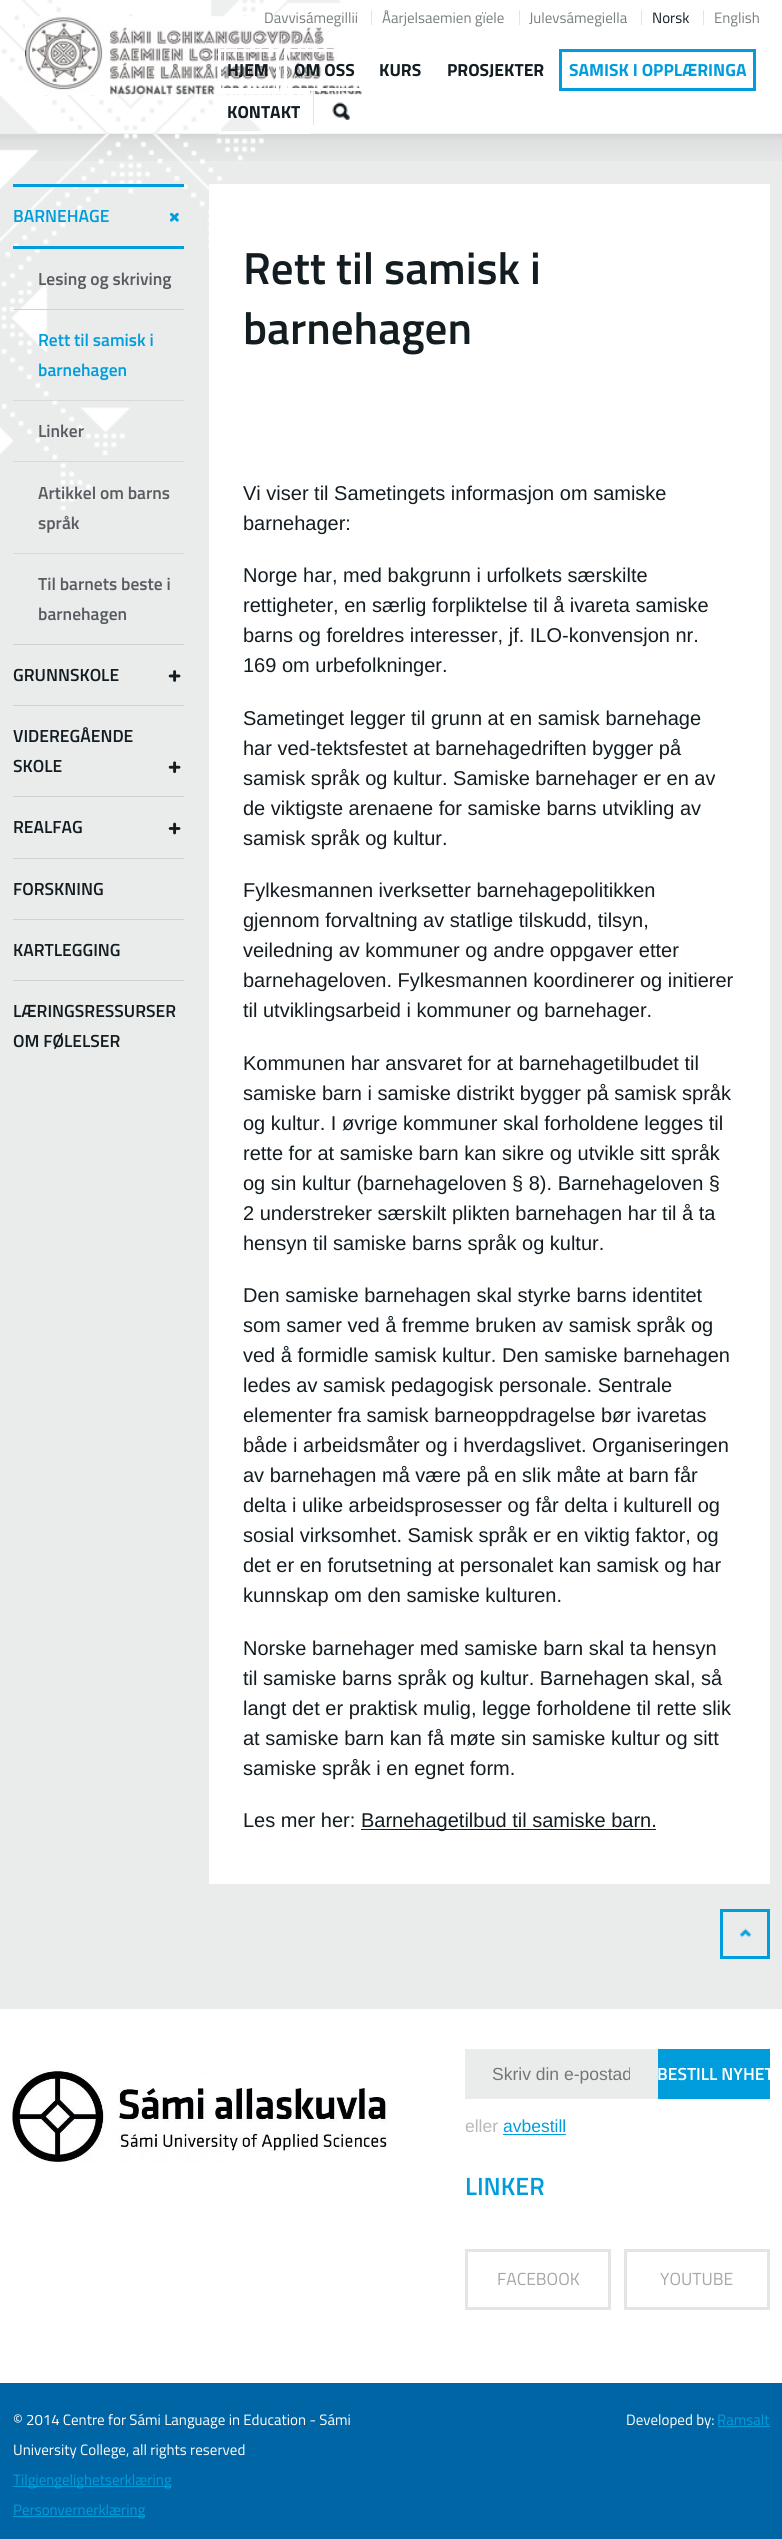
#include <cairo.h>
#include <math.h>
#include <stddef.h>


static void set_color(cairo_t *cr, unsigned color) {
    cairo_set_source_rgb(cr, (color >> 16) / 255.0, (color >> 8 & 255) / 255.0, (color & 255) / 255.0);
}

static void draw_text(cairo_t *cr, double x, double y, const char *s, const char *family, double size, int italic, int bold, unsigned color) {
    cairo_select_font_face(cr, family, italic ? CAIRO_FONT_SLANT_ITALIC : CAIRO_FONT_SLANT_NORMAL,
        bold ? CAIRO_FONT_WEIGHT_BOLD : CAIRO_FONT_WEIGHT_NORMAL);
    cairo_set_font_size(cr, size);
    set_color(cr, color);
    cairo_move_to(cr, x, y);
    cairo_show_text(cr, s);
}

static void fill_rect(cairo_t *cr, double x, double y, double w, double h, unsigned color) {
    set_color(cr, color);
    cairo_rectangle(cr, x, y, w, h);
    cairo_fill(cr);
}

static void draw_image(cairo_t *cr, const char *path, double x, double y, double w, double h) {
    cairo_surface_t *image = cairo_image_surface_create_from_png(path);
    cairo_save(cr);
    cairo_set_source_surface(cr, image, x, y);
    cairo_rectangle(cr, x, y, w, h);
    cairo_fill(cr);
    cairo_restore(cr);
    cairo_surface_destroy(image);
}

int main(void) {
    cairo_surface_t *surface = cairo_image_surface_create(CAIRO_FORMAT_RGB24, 782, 2539);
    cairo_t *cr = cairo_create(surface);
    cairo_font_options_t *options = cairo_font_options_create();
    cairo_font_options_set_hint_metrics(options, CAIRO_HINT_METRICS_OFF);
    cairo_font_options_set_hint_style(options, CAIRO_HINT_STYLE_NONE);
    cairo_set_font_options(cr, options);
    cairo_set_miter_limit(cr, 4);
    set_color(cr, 0xEAEBEB);
    cairo_paint(cr);
    draw_image(cr, "assets/img1.png", 0, 0, 782, 161);
    draw_image(cr, "assets/img2.png", 0, 0, 341, 510);
    draw_image(cr, "assets/img3.png", 25, 16, 338, 79);
    draw_text(cr, 264, 23, "Davvisámegillii", "Titillium Web", 15, 0, 0, 0x787E80);
    fill_rect(cr, 371, 10, 1, 15, 0xE2E3E4);
    draw_text(cr, 382, 23, "Åarjelsaemien gïele", "Titillium Web", 15, 0, 0, 0x787E80);
    fill_rect(cr, 519, 10, 1, 15, 0xE2E3E4);
    draw_text(cr, 529, 23, "Julevsámegiella", "Titillium Web", 15, 0, 0, 0x787E80);
    fill_rect(cr, 641, 10, 1, 15, 0xE2E3E4);
    draw_text(cr, 652, 23, "Norsk", "Titillium Web", 15, 0, 0, 0x131C21);
    fill_rect(cr, 703, 10, 1, 15, 0xE2E3E4);
    draw_text(cr, 714, 23, "English", "Titillium Web", 15, 0, 0, 0x787E80);
    cairo_rectangle(cr, 219.5, 50.5, 58, 39);
    set_color(cr, 0xFFFFFF);
    cairo_set_line_width(cr, 3);
    cairo_stroke(cr);
    draw_text(cr, 227, 76, "HJEM", "Titillium Web", 17.5, 0, 1, 0x131C21);
    cairo_rectangle(cr, 285.5, 50.5, 78, 39);
    set_color(cr, 0xFFFFFF);
    cairo_stroke(cr);
    draw_text(cr, 294, 76, "OM OSS", "Titillium Web", 17.5, 0, 1, 0x131C21);
    draw_text(cr, 379, 76, "KURS", "Titillium Web", 17.5, 0, 1, 0x131C21);
    draw_text(cr, 447, 76, "PROSJEKTER", "Titillium Web", 17.5, 0, 1, 0x131C21);
    cairo_rectangle(cr, 560.5, 50.5, 194, 39);
    set_color(cr, 0x009DDC);
    cairo_stroke(cr);
    draw_text(cr, 569, 76, "SAMISK I OPPLÆRINGA", "Titillium Web", 17.5, 0, 1, 0x009DDC);
    cairo_rectangle(cr, 219.5, 92.5, 89, 40);
    set_color(cr, 0xFFFFFF);
    cairo_stroke(cr);
    draw_text(cr, 227, 118, "KONTAKT", "Titillium Web", 17.5, 0, 1, 0x131C21);
    fill_rect(cr, 313, 91, 1, 34, 0xE2E3E4);
    draw_image(cr, "assets/img4.png", 332, 102, 18, 18);
    fill_rect(cr, 13, 184, 171, 3, 0x009DDC);
    fill_rect(cr, 13, 246, 171, 3, 0x009DDC);
    draw_text(cr, 13, 222, "BARNEHAGE", "Titillium Web SemiBold", 17.5, 0, 0, 0x009DDC);
    draw_image(cr, "assets/img5.png", 170, 212, 9, 10);
    draw_text(cr, 38, 285, "Lesing og skriving", "Titillium Web SemiBold", 17.5, 0, 0, 0x565C60);
    fill_rect(cr, 13, 309, 171, 1, 0xD0D2D2);
    draw_text(cr, 38, 346, "Rett til samisk i", "Titillium Web SemiBold", 17.5, 0, 0, 0x009DDC);
    draw_text(cr, 38, 376, "barnehagen", "Titillium Web SemiBold", 17.5, 0, 0, 0x009DDC);
    cairo_set_source_rgba(cr, 0.816, 0.824, 0.824, 0.69);
    cairo_rectangle(cr, 13, 400, 171, 1);
    cairo_fill(cr);
    draw_text(cr, 38, 437, "Linker", "Titillium Web SemiBold", 17.5, 0, 0, 0x565C60);
    fill_rect(cr, 13, 461, 171, 1, 0xD8DADA);
    draw_text(cr, 38, 499, "Artikkel om barns", "Titillium Web SemiBold", 17.5, 0, 0, 0x565C60);
    draw_text(cr, 38, 529, "språk", "Titillium Web SemiBold", 17.5, 0, 0, 0x565C60);
    fill_rect(cr, 13, 553, 171, 1, 0xD8DADA);
    draw_text(cr, 38, 590, "Til barnets beste i", "Titillium Web SemiBold", 17.5, 0, 0, 0x565C60);
    draw_text(cr, 38, 620, "barnehagen", "Titillium Web SemiBold", 17.5, 0, 0, 0x565C60);
    fill_rect(cr, 13, 644, 171, 1, 0xD0D2D2);
    draw_text(cr, 13, 681, "GRUNNSKOLE", "Titillium Web SemiBold", 17.5, 0, 0, 0x131C21);
    draw_image(cr, "assets/img6.png", 168, 670, 13, 12);
    fill_rect(cr, 13, 705, 171, 1, 0xD0D2D2);
    draw_text(cr, 13, 742, "VIDEREGÅENDE", "Titillium Web SemiBold", 17.5, 0, 0, 0x131C21);
    draw_text(cr, 13, 772, "SKOLE", "Titillium Web SemiBold", 17.5, 0, 0, 0x131C21);
    draw_image(cr, "assets/img7.png", 168, 761, 13, 13);
    fill_rect(cr, 13, 796, 171, 1, 0xD0D2D2);
    draw_text(cr, 13, 833, "REALFAG", "Titillium Web SemiBold", 17.5, 0, 0, 0x131C21);
    draw_image(cr, "assets/img8.png", 168, 822, 13, 13);
    fill_rect(cr, 13, 858, 171, 1, 0xD0D2D2);
    draw_text(cr, 13, 895, "FORSKNING", "Titillium Web SemiBold", 17.5, 0, 0, 0x131C21);
    fill_rect(cr, 13, 919, 171, 1, 0xD0D2D2);
    draw_text(cr, 13, 956, "KARTLEGGING", "Titillium Web SemiBold", 17.5, 0, 0, 0x131C21);
    fill_rect(cr, 13, 980, 171, 1, 0xD0D2D2);
    draw_text(cr, 13, 1017, "LÆRINGSRESSURSER", "Titillium Web SemiBold", 17.5, 0, 0, 0x131C21);
    draw_text(cr, 13, 1047, "OM FØLELSER", "Titillium Web SemiBold", 17.5, 0, 0, 0x131C21);
    fill_rect(cr, 209, 184, 561, 1700, 0xFFFFFF);
    draw_text(cr, 243, 284, "Rett til samisk i", "Titillium Web SemiBold", 45, 0, 0, 0x131C21);
    draw_text(cr, 243, 344, "barnehagen", "Titillium Web SemiBold", 45, 0, 0, 0x131C21);
    draw_text(cr, 243, 500, "Vi viser til Sametingets informasjon om samiske", "Liberation Sans", 20, 0, 0, 0x131C21);
    draw_text(cr, 243, 530, "barnehager:", "Liberation Sans", 20, 0, 0, 0x131C21);
    draw_text(cr, 243, 582, "Norge har, med bakgrunn i urfolkets særskilte", "Liberation Sans", 20, 0, 0, 0x131C21);
    draw_text(cr, 243, 612, "rettigheter, en særlig forpliktelse til å ivareta samiske", "Liberation Sans", 20, 0, 0, 0x131C21);
    draw_text(cr, 243, 642, "barns og foreldres interesser, jf. ILO-konvensjon nr.", "Liberation Sans", 20, 0, 0, 0x131C21);
    draw_text(cr, 243, 672, "169 om urbefolkninger.", "Liberation Sans", 20, 0, 0, 0x131C21);
    draw_text(cr, 243, 725, "Sametinget legger til grunn at en samisk barnehage", "Liberation Sans", 20, 0, 0, 0x131C21);
    draw_text(cr, 243, 755, "har ved-tektsfestet at barnehagedriften bygger på", "Liberation Sans", 20, 0, 0, 0x131C21);
    draw_text(cr, 243, 785, "samisk språk og kultur. Samiske barnehager er en av", "Liberation Sans", 20, 0, 0, 0x131C21);
    draw_text(cr, 243, 815, "de viktigste arenaene for samiske barns utvikling av", "Liberation Sans", 20, 0, 0, 0x131C21);
    draw_text(cr, 243, 845, "samisk språk og kultur.", "Liberation Sans", 20, 0, 0, 0x131C21);
    draw_text(cr, 243, 897, "Fylkesmannen iverksetter barnehagepolitikken", "Liberation Sans", 20, 0, 0, 0x131C21);
    draw_text(cr, 243, 927, "gjennom forvaltning av statlige tilskudd, tilsyn,", "Liberation Sans", 20, 0, 0, 0x131C21);
    draw_text(cr, 243, 957, "veiledning av kommuner og andre oppgaver etter", "Liberation Sans", 20, 0, 0, 0x131C21);
    draw_text(cr, 243, 987, "barnehageloven. Fylkesmannen koordinerer og initierer", "Liberation Sans", 20, 0, 0, 0x131C21);
    draw_text(cr, 243, 1017, "til utviklingsarbeid i kommuner og barnehager.", "Liberation Sans", 20, 0, 0, 0x131C21);
    draw_text(cr, 243, 1070, "Kommunen har ansvaret for at barnehagetilbudet til", "Liberation Sans", 20, 0, 0, 0x131C21);
    draw_text(cr, 243, 1100, "samiske barn i samiske distrikt bygger på samisk språk", "Liberation Sans", 20, 0, 0, 0x131C21);
    draw_text(cr, 243, 1130, "og kultur. I øvrige kommuner skal forholdene legges til", "Liberation Sans", 20, 0, 0, 0x131C21);
    draw_text(cr, 243, 1160, "rette for at samiske barn kan sikre og utvikle sitt språk", "Liberation Sans", 20, 0, 0, 0x131C21);
    draw_text(cr, 243, 1190, "og sin kultur (barnehageloven § 8). Barnehageloven §", "Liberation Sans", 20, 0, 0, 0x131C21);
    draw_text(cr, 243, 1220, "2 understreker særskilt plikten barnehagen har til å ta", "Liberation Sans", 20, 0, 0, 0x131C21);
    draw_text(cr, 243, 1250, "hensyn til samiske barns språk og kultur.", "Liberation Sans", 20, 0, 0, 0x131C21);
    draw_text(cr, 243, 1302, "Den samiske barnehagen skal styrke barns identitet", "Liberation Sans", 20, 0, 0, 0x131C21);
    draw_text(cr, 243, 1332, "som samer ved å fremme bruken av samisk språk og", "Liberation Sans", 20, 0, 0, 0x131C21);
    draw_text(cr, 243, 1362, "ved å formidle samisk kultur. Den samiske barnehagen", "Liberation Sans", 20, 0, 0, 0x131C21);
    draw_text(cr, 243, 1392, "ledes av samisk pedagogisk personale. Sentrale", "Liberation Sans", 20, 0, 0, 0x131C21);
    draw_text(cr, 243, 1422, "elementer fra samisk barneoppdragelse bør ivaretas", "Liberation Sans", 20, 0, 0, 0x131C21);
    draw_text(cr, 243, 1452, "både i arbeidsmåter og i hverdagslivet. Organiseringen", "Liberation Sans", 20, 0, 0, 0x131C21);
    draw_text(cr, 243, 1482, "av barnehagen må være på en slik måte at barn får", "Liberation Sans", 20, 0, 0, 0x131C21);
    draw_text(cr, 243, 1512, "delta i ulike arbeidsprosesser og får delta i kulturell og", "Liberation Sans", 20, 0, 0, 0x131C21);
    draw_text(cr, 243, 1542, "sosial virksomhet. Samisk språk er en viktig faktor, og", "Liberation Sans", 20, 0, 0, 0x131C21);
    draw_text(cr, 243, 1572, "det er en forutsetning at personalet kan samisk og har", "Liberation Sans", 20, 0, 0, 0x131C21);
    draw_text(cr, 243, 1602, "kunnskap om den samiske kulturen.", "Liberation Sans", 20, 0, 0, 0x131C21);
    draw_text(cr, 243, 1655, "Norske barnehager med samiske barn skal ta hensyn", "Liberation Sans", 20, 0, 0, 0x131C21);
    draw_text(cr, 243, 1685, "til samiske barns språk og kultur. Barnehagen skal, så", "Liberation Sans", 20, 0, 0, 0x131C21);
    draw_text(cr, 243, 1715, "langt det er praktisk mulig, legge forholdene til rette slik", "Liberation Sans", 20, 0, 0, 0x131C21);
    draw_text(cr, 243, 1745, "at samiske barn kan få møte sin samiske kultur og sitt", "Liberation Sans", 20, 0, 0, 0x131C21);
    draw_text(cr, 243, 1775, "samiske språk i en egnet form.", "Liberation Sans", 20, 0, 0, 0x131C21);
    draw_text(cr, 243, 1827, "Les mer her:", "Liberation Sans", 20, 0, 0, 0x131C21);
    fill_rect(cr, 361, 1829, 295, 1, 0x131C21);
    draw_text(cr, 361, 1827, "Barnehagetilbud til samiske barn.", "Liberation Sans", 20, 0, 0, 0x131C21);
    draw_image(cr, "assets/img9.png", 740, 1928, 12, 10);
    cairo_rectangle(cr, 721.5, 1910.5, 47, 47);
    set_color(cr, 0x009DDC);
    cairo_stroke(cr);
    fill_rect(cr, 0, 2009, 782, 374, 0xFFFFFF);
    draw_image(cr, "assets/img10.png", 12, 2071, 376, 92);
    fill_rect(cr, 465, 2049, 193, 50, 0xEAECEB);
    cairo_save(cr);
    cairo_rectangle(cr, 493, 2064, 137, 20);
    cairo_clip(cr);
    draw_text(cr, 492, 2080, "Skriv din e-postad", "Liberation Sans", 17.5, 0, 0, 0x757575);
    cairo_restore(cr);
    fill_rect(cr, 658, 2049, 112, 50, 0x009DDC);
    cairo_save(cr);
    cairo_rectangle(cr, 658, 2049, 112, 50);
    cairo_clip(cr);
    draw_text(cr, 657, 2080, "BESTILL NYHET", "Titillium Web SemiBold", 17.5, 0, 0, 0xFFFFFF);
    cairo_restore(cr);
    draw_text(cr, 465, 2132, "eller", "Liberation Sans", 17.5, 0, 0, 0xB9B9B9);
    draw_text(cr, 503, 2132, "avbestill", "Liberation Sans", 17.5, 0, 0, 0x009DDC);
    fill_rect(cr, 503, 2134, 63, 1, 0x009DDC);
    draw_text(cr, 465, 2195, "LINKER", "Titillium Web SemiBold", 25, 0, 0, 0x009DDC);
    cairo_rectangle(cr, 466.5, 2250.5, 143, 58);
    set_color(cr, 0xE5E5E5);
    cairo_stroke(cr);
    draw_text(cr, 497, 2285, "FACEBOOK", "Titillium Web", 17.5, 0, 0, 0xA7A7A7);
    cairo_rectangle(cr, 625.5, 2250.5, 143, 58);
    set_color(cr, 0xE5E5E5);
    cairo_stroke(cr);
    draw_text(cr, 660, 2285, "YOUTUBE", "Titillium Web", 17.5, 0, 0, 0xA7A7A7);
    fill_rect(cr, 0, 2383, 782, 156, 0x0065A5);
    draw_text(cr, 13, 2425, "© 2014 Centre for Sámi Language in Education - Sámi", "Titillium Web", 15, 0, 0, 0xFFFFFF);
    draw_text(cr, 13, 2455, "University College, all rights reserved", "Titillium Web", 15, 0, 0, 0xFFFFFF);
    fill_rect(cr, 13, 2486, 158, 1, 0x009DDC);
    draw_text(cr, 13, 2485, "Tilgjengelighetserklæring", "Titillium Web", 15, 0, 0, 0x009DDC);
    fill_rect(cr, 13, 2516, 132, 1, 0x009DDC);
    draw_text(cr, 13, 2515, "Personvernerklæring", "Titillium Web", 15, 0, 0, 0x009DDC);
    draw_text(cr, 626, 2425, "Developed by:", "Titillium Web", 15, 0, 0, 0xFFFFFF);
    draw_text(cr, 717, 2425, "Ramsalt", "Titillium Web", 15, 0, 0, 0x009DDC);
    fill_rect(cr, 718, 2426, 52, 1, 0x009DDC);
    cairo_surface_write_to_png(surface, "output.png");
    cairo_font_options_destroy(options);
    cairo_destroy(cr);
    cairo_surface_destroy(surface);
    return 0;
}
